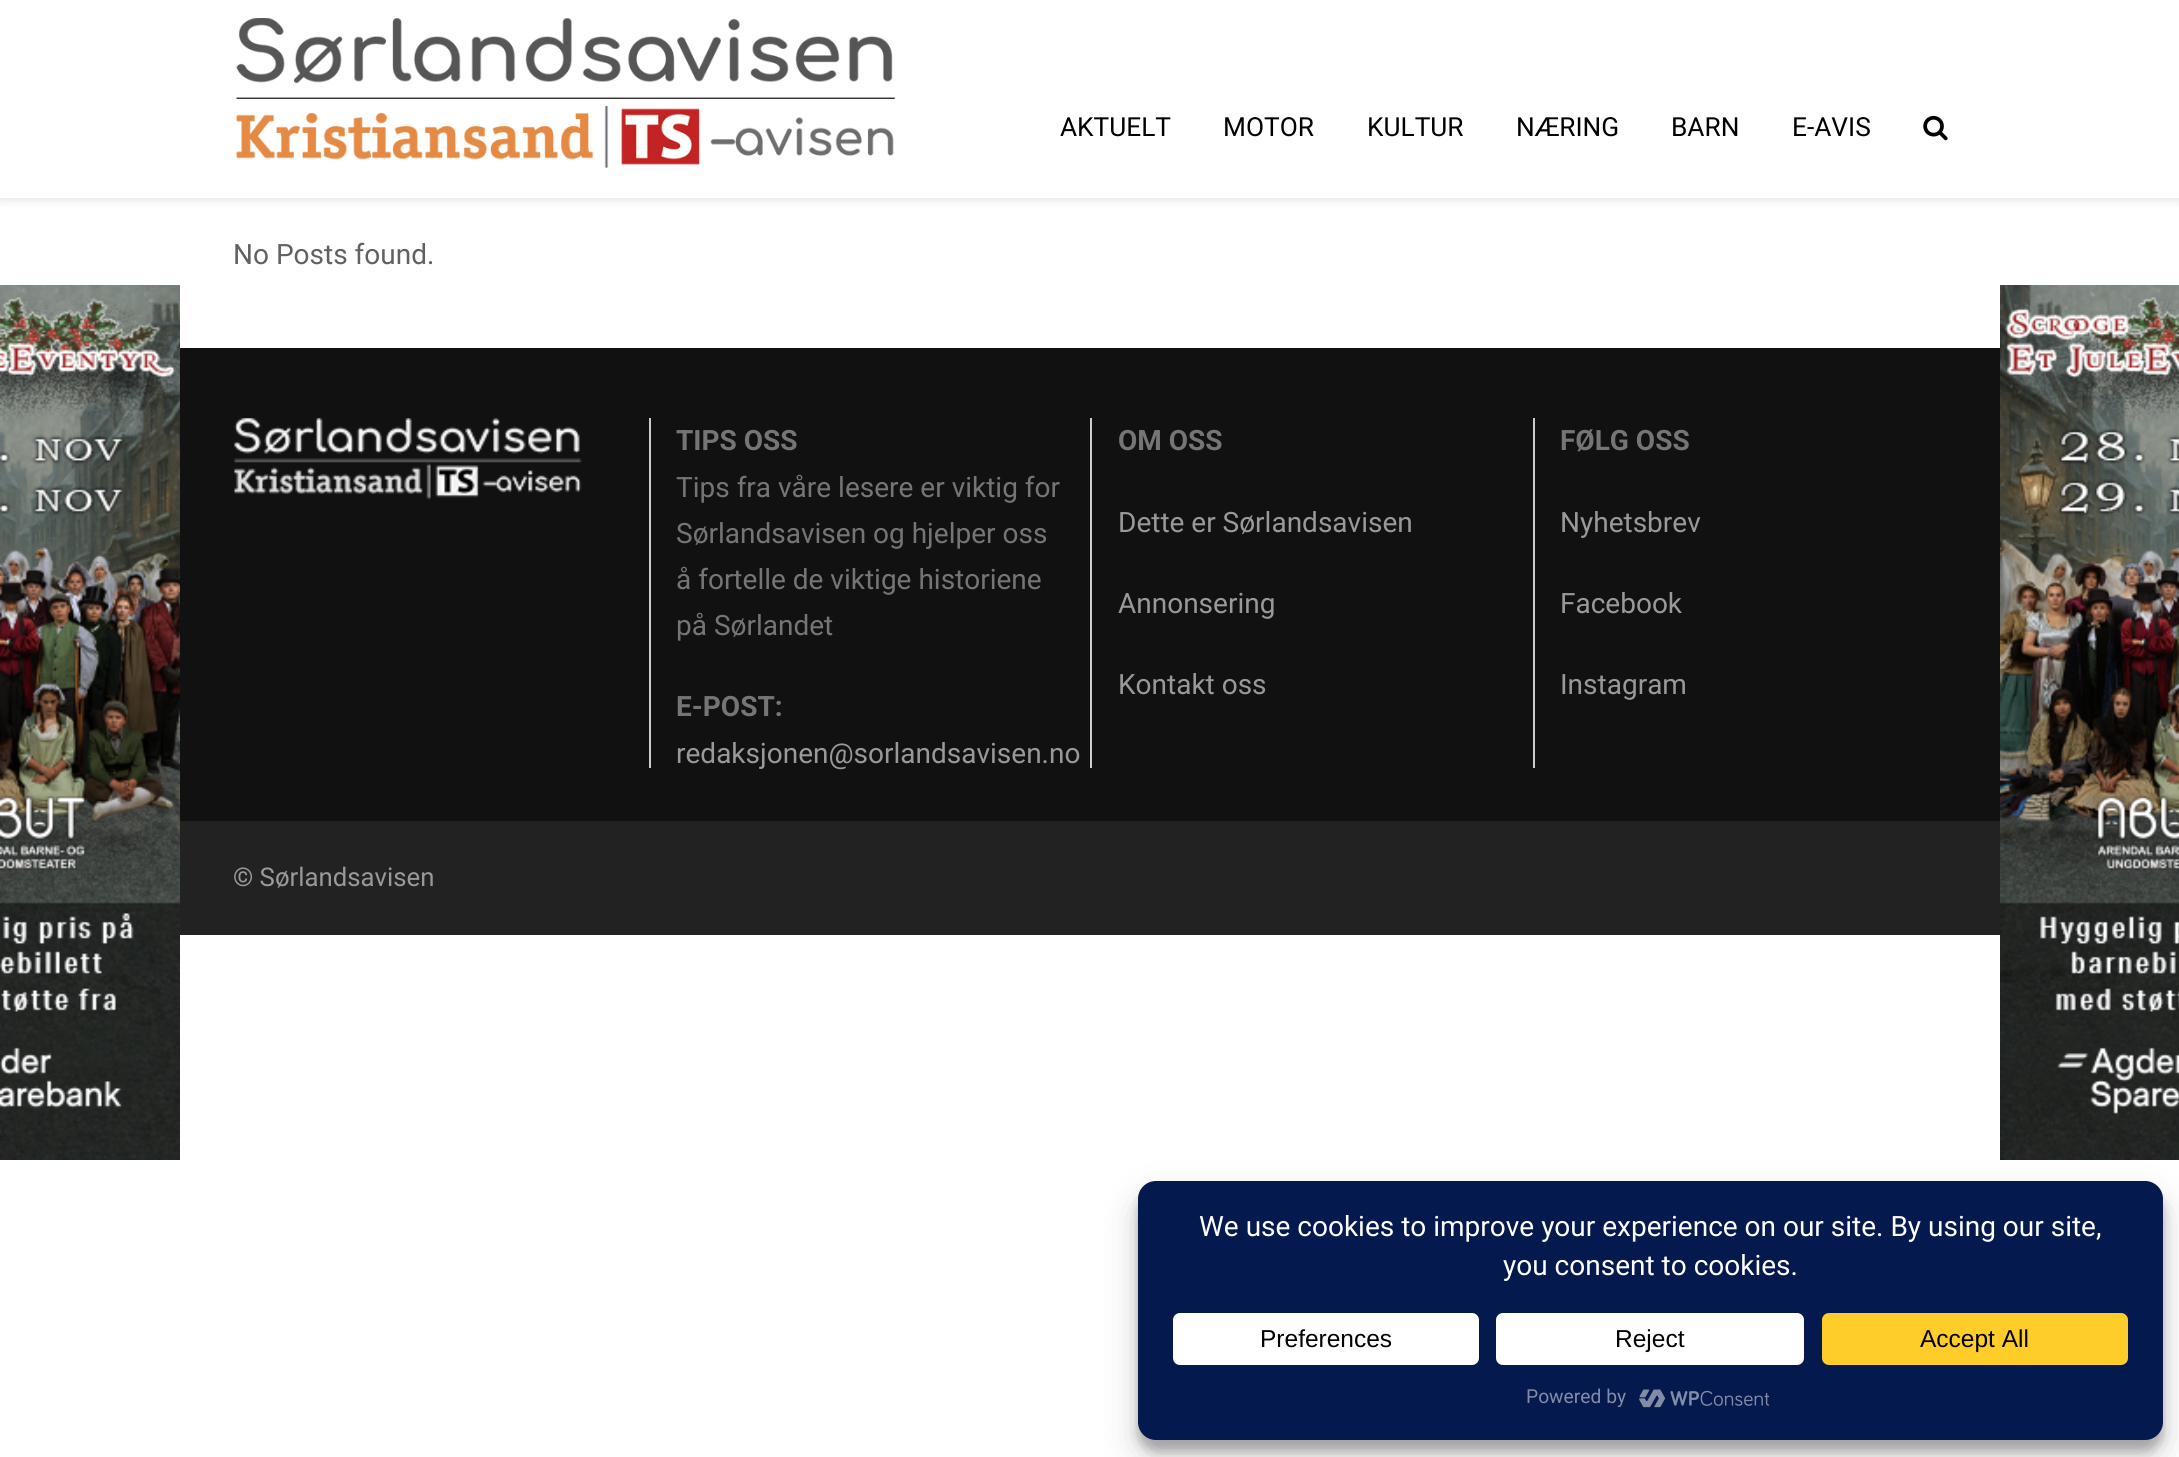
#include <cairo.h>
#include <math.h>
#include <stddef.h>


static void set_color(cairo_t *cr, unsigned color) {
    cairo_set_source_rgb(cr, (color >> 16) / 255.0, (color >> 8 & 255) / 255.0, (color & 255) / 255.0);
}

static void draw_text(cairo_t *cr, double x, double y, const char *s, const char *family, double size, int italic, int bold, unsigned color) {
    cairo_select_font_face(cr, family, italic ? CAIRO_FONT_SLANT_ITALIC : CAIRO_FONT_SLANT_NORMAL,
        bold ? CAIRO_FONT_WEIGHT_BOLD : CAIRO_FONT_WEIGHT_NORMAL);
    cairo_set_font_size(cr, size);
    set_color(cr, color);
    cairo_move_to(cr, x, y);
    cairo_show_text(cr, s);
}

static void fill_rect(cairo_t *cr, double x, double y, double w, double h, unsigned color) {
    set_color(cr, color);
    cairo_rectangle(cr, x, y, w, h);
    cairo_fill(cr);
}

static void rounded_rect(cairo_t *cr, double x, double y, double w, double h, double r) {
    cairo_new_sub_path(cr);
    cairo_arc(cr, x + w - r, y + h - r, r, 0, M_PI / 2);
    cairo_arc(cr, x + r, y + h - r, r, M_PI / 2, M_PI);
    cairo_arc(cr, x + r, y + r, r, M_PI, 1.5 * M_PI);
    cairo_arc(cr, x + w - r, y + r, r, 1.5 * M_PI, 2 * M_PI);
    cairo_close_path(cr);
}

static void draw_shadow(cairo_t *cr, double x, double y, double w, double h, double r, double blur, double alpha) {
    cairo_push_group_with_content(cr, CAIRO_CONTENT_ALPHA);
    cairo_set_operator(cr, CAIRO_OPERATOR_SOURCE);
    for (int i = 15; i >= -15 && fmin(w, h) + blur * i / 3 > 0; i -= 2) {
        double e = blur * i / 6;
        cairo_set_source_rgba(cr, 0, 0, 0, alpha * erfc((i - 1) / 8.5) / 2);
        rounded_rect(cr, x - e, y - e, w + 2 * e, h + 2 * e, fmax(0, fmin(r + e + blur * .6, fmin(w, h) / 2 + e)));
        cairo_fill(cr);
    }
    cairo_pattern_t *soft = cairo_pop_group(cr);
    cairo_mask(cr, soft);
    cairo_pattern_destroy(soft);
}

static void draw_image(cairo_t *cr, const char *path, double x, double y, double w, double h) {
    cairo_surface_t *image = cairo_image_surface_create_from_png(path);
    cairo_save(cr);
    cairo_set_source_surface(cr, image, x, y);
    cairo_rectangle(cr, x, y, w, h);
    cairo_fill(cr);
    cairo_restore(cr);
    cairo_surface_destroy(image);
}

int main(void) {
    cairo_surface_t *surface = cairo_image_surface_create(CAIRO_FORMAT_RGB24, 2179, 1457);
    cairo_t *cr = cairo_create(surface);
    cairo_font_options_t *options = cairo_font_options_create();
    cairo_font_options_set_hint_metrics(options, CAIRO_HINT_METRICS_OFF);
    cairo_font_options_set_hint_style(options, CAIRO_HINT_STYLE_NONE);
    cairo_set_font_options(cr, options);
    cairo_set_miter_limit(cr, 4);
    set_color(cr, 0xFFFFFF);
    cairo_paint(cr);
    draw_image(cr, "assets/img1.png", 0, 285, 180, 875);
    set_color(cr, 0x000000);
    draw_shadow(cr, 0, 4, 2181, 197, 0, 4.5, 0.1);
    fill_rect(cr, 0, 0, 2179, 198, 0xFFFFFF);
    draw_image(cr, "assets/img2.png", 236, 18, 660, 150);
    draw_text(cr, 1060, 136, "AKTUELT", "Roboto", 26.25, 0, 0, 0x000000);
    draw_text(cr, 1223, 136, "MOTOR", "Roboto", 26.25, 0, 0, 0x000000);
    draw_text(cr, 1367, 136, "KULTUR", "Roboto", 26.25, 0, 0, 0x000000);
    draw_text(cr, 1516, 136, "NÆRING", "Roboto", 26.25, 0, 0, 0x000000);
    draw_text(cr, 1671, 136, "BARN", "Roboto", 26.25, 0, 0, 0x000000);
    draw_text(cr, 1792, 136, "E-AVIS", "Roboto", 26.25, 0, 0, 0x000000);
    draw_image(cr, "assets/img3.png", 1923, 115, 25, 26);
    draw_text(cr, 233, 264, "No Posts found.", "Roboto", 28, 0, 0, 0x616161);
    fill_rect(cr, 180, 348, 1820, 473, 0x111111);
    draw_image(cr, "assets/img4.png", 234, 418, 348, 82);
    fill_rect(cr, 649, 418, 2, 350, 0xCDCDCD);
    draw_text(cr, 676, 450, "TIPS OSS", "Roboto", 28, 0, 1, 0x757575);
    draw_text(cr, 676, 497, "Tips fra våre lesere er viktig for", "Roboto", 28, 0, 0, 0x757575);
    draw_text(cr, 676, 543, "Sørlandsavisen og hjelper oss", "Roboto", 28, 0, 0, 0x757575);
    draw_text(cr, 676, 589, "å fortelle de viktige historiene", "Roboto", 28, 0, 0, 0x757575);
    draw_text(cr, 676, 635, "på Sørlandet", "Roboto", 28, 0, 0, 0x757575);
    draw_text(cr, 676, 716, "E-POST:", "Roboto", 28, 0, 1, 0x757575);
    draw_text(cr, 676, 763, "redaksjonen@sorlandsavisen.no", "Roboto", 28, 0, 0, 0x999999);
    fill_rect(cr, 1090, 418, 2, 350, 0xCDCDCD);
    draw_text(cr, 1118, 450, "OM OSS", "Roboto", 28, 0, 1, 0x757575);
    draw_text(cr, 1118, 532, "Dette er Sørlandsavisen", "Roboto", 28, 0, 0, 0x999999);
    draw_text(cr, 1118, 613, "Annonsering", "Roboto", 28, 0, 0, 0x999999);
    draw_text(cr, 1118, 694, "Kontakt oss", "Roboto", 28, 0, 0, 0x999999);
    fill_rect(cr, 1533, 418, 2, 350, 0xCDCDCD);
    draw_text(cr, 1560, 450, "FØLG OSS", "Roboto", 28, 0, 1, 0x757575);
    draw_text(cr, 1560, 532, "Nyhetsbrev", "Roboto", 28, 0, 0, 0x999999);
    draw_text(cr, 1560, 613, "Facebook", "Roboto", 28, 0, 0, 0x999999);
    draw_text(cr, 1560, 694, "Instagram", "Roboto", 28, 0, 0, 0x999999);
    fill_rect(cr, 180, 821, 1820, 114, 0x222222);
    draw_text(cr, 233, 886, "© Sørlandsavisen", "Roboto", 25.75, 0, 0, 0x999999);
    draw_image(cr, "assets/img5.png", 2000, 285, 179, 875);
    set_color(cr, 0x000000);
    draw_shadow(cr, 1138, 1192, 1025, 259, 18, 5, 0.23);
    draw_shadow(cr, 1138, 1199, 1025, 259, 18, 17.5, 0.19);
    set_color(cr, 0x04194E);
    rounded_rect(cr, 1138, 1181, 1025, 259, 18);
    cairo_fill(cr);
    draw_text(cr, 1199, 1236, "We use cookies to improve your experience on our site. By using our site,", "Roboto", 28, 0, 0, 0xFFFFFF);
    draw_text(cr, 1503, 1275, "you consent to cookies.", "Roboto", 28, 0, 0, 0xFFFFFF);
    rounded_rect(cr, 1173, 1313, 306, 52, 7);
    cairo_fill(cr);
    draw_text(cr, 1260, 1347, "Preferences", "Liberation Sans", 24.5, 0, 0, 0x000000);
    set_color(cr, 0xFFFFFF);
    rounded_rect(cr, 1496, 1313, 308, 52, 7);
    cairo_fill(cr);
    draw_text(cr, 1615, 1347, "Reject", "Liberation Sans", 24.5, 0, 0, 0x000000);
    set_color(cr, 0xFFCD2A);
    rounded_rect(cr, 1822, 1313, 306, 52, 7);
    cairo_fill(cr);
    draw_text(cr, 1920, 1347, "Accept All", "Liberation Sans", 24.5, 0, 0, 0x000000);
    draw_text(cr, 1526, 1403, "Powered by", "Roboto", 19.25, 0, 0, 0x828CA7);
    draw_image(cr, "assets/img6.png", 1639, 1389, 131, 19);
    cairo_surface_write_to_png(surface, "output.png");
    cairo_font_options_destroy(options);
    cairo_destroy(cr);
    cairo_surface_destroy(surface);
    return 0;
}
